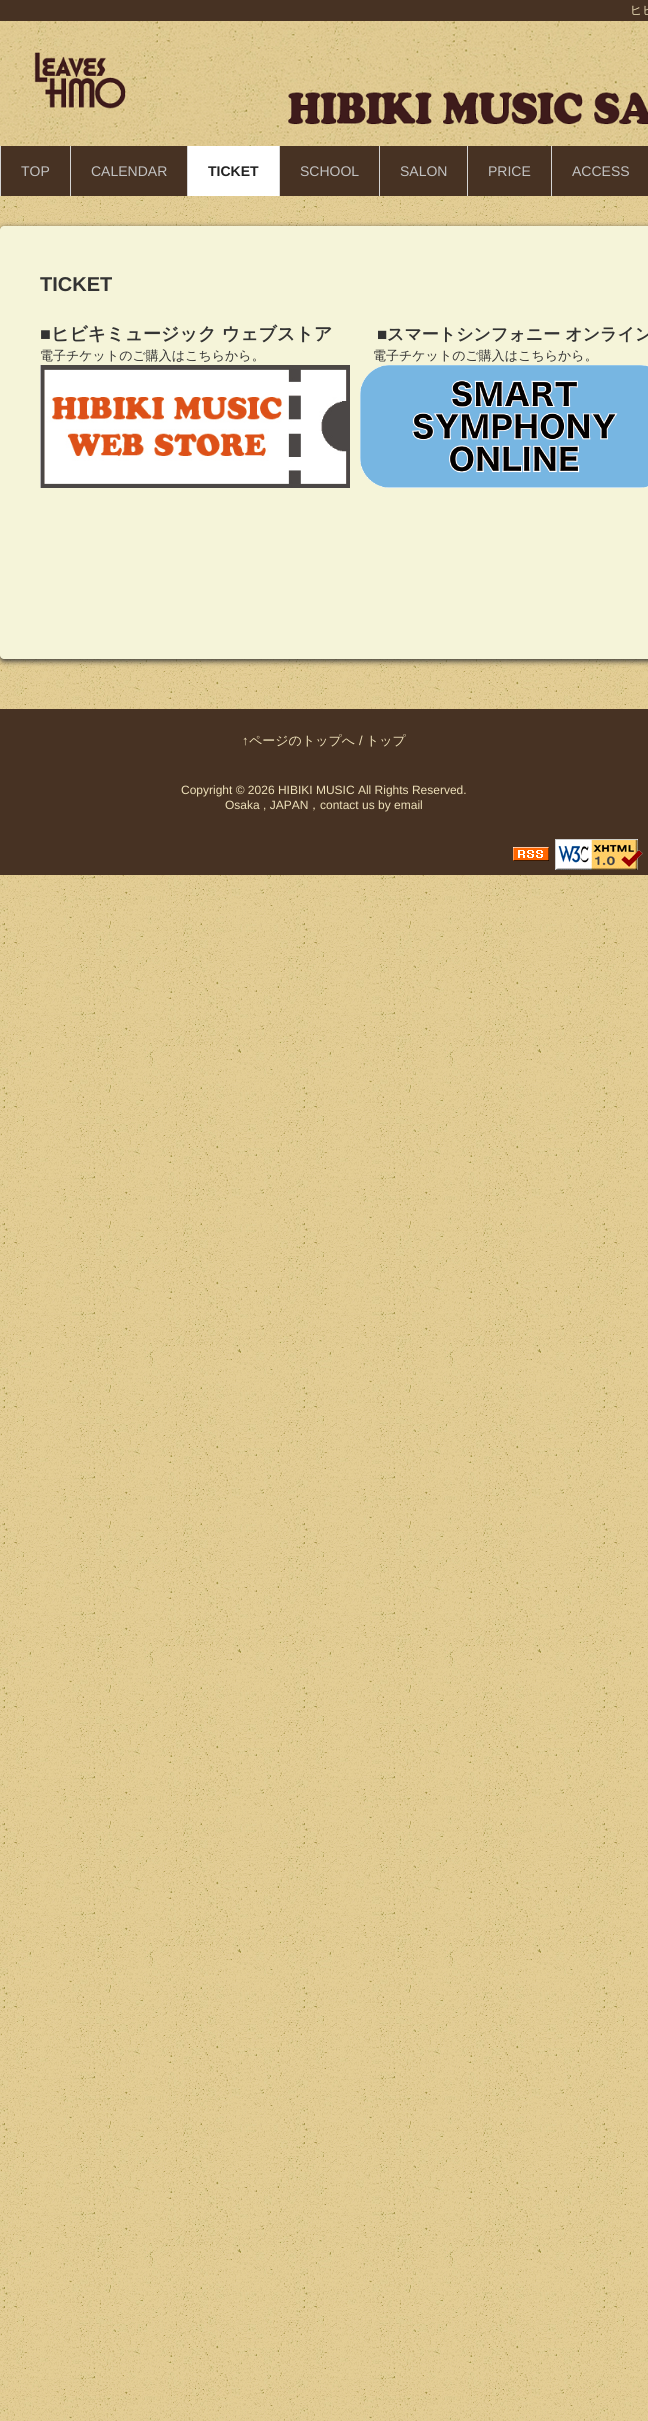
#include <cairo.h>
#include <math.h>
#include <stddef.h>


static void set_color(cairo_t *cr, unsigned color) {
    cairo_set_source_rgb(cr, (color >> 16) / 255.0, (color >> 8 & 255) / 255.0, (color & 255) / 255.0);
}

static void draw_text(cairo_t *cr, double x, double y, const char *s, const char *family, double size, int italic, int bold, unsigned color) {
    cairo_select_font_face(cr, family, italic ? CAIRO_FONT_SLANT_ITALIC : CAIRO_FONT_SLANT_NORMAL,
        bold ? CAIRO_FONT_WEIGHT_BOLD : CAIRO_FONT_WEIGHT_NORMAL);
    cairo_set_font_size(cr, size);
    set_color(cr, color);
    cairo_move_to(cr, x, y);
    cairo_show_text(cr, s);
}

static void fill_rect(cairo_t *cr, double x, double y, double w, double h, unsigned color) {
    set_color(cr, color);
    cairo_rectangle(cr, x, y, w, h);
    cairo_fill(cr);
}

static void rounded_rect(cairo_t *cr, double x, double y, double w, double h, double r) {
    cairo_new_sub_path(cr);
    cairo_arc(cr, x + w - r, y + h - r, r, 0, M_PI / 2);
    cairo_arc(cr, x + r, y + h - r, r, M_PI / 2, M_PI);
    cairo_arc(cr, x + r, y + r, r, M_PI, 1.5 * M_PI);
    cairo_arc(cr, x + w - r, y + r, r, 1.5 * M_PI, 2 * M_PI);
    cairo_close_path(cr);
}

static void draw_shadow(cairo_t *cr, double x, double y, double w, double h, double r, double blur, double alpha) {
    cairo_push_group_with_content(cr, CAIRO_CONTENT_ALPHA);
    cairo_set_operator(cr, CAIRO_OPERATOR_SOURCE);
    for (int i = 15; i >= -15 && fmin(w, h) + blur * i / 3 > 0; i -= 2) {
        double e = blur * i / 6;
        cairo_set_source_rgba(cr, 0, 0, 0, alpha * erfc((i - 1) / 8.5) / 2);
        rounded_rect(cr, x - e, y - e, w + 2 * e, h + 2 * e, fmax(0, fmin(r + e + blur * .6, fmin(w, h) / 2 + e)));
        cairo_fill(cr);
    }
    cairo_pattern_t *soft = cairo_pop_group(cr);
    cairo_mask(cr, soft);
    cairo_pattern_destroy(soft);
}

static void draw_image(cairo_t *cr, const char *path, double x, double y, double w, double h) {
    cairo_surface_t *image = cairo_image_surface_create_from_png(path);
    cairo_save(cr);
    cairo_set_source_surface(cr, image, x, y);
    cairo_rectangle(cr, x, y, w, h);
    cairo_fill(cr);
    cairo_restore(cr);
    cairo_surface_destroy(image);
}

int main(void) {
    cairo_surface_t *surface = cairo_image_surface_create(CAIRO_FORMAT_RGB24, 648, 2421);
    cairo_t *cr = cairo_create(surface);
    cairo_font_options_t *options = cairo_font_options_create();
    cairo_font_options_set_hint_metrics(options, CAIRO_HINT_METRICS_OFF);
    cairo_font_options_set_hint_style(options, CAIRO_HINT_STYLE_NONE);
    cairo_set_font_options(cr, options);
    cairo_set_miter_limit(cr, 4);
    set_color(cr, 0xFFFFFF);
    cairo_paint(cr);
    draw_image(cr, "assets/img1.png", 0, 196, 648, 2225);
    fill_rect(cr, 0, 0, 648, 21, 0x473223);
    draw_text(cr, 630, 14, "ヒビ", "WenQuanYi Zen Hei Medium", 12, 0, 0, 0xEEE1BA);
    draw_image(cr, "assets/img2.png", 0, 21, 648, 125);
    fill_rect(cr, 1, 146, 647, 50, 0x473223);
    fill_rect(cr, 0, 146, 1, 50, 0xD5D5D5);
    fill_rect(cr, 70, 146, 1, 50, 0xD5D5D5);
    draw_text(cr, 21, 176, "TOP", "Liberation Sans", 14, 0, 0, 0xC2C2C2);
    fill_rect(cr, 187, 146, 1, 50, 0xD5D5D5);
    draw_text(cr, 91, 176, "CALENDAR", "Liberation Sans", 14, 0, 0, 0xC2C2C2);
    fill_rect(cr, 188, 146, 91, 50, 0xFFFFFF);
    fill_rect(cr, 279, 146, 1, 50, 0xD5D5D5);
    draw_text(cr, 208, 176, "TICKET", "Liberation Sans", 14, 0, 1, 0x212121);
    fill_rect(cr, 379, 146, 1, 50, 0xD5D5D5);
    draw_text(cr, 300, 176, "SCHOOL", "Liberation Sans", 14, 0, 0, 0xC2C2C2);
    fill_rect(cr, 467, 146, 1, 50, 0xD5D5D5);
    draw_text(cr, 400, 176, "SALON", "Liberation Sans", 14, 0, 0, 0xC2C2C2);
    fill_rect(cr, 551, 146, 1, 50, 0xD5D5D5);
    draw_text(cr, 488, 176, "PRICE", "Liberation Sans", 14, 0, 0, 0xC2C2C2);
    draw_text(cr, 572, 176, "ACCESS", "Liberation Sans", 14, 0, 0, 0xC2C2C2);
    set_color(cr, 0x333333);
    draw_shadow(cr, 0, 228, 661, 433, 4, 3, 1);
    set_color(cr, 0xF5F4D9);
    rounded_rect(cr, 0, 226, 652, 433, 4);
    cairo_fill(cr);
    draw_text(cr, 40, 291, "TICKET", "Liberation Sans", 20, 0, 1, 0x333333);
    draw_text(cr, 40, 340, "■", "Liberation Sans", 18, 0, 1, 0x333333);
    draw_text(cr, 51, 340, "ヒビキミュージック ウェブストア", "WenQuanYi Zen Hei", 18, 0, 1, 0x333333);
    draw_text(cr, 40, 360, "電子チケットのご購入はこちらから。", "WenQuanYi Zen Hei Medium", 13, 0, 0, 0x333333);
    draw_image(cr, "assets/img3.png", 40, 365, 310, 123);
    draw_text(cr, 377, 340, "■", "Liberation Sans", 17, 0, 1, 0x333333);
    draw_text(cr, 387, 340, "スマートシンフォニー オンライン", "WenQuanYi Zen Hei", 17, 0, 1, 0x333333);
    draw_text(cr, 373, 360, "電子チケットのご購入はこちらから。", "WenQuanYi Zen Hei Medium", 13, 0, 0, 0x333333);
    draw_image(cr, "assets/img4.png", 360, 365, 288, 123);
    fill_rect(cr, 0, 709, 648, 166, 0x473223);
    draw_text(cr, 242, 745, "↑", "Liberation Sans", 13, 0, 0, 0xEEE1BA);
    draw_text(cr, 249, 745, "ページのトップへ", "WenQuanYi Zen Hei Medium", 13, 0, 0, 0xEEE1BA);
    draw_text(cr, 359, 745, "/", "Liberation Sans", 13, 0, 0, 0xEEE1BA);
    draw_text(cr, 366, 745, "トップ", "WenQuanYi Zen Hei Medium", 13, 0, 0, 0xEEE1BA);
    draw_text(cr, 181, 794, "Copyright © 2026 HIBIKI MUSIC All Rights Reserved.", "Liberation Sans", 12, 0, 0, 0xEEE1BA);
    draw_text(cr, 225, 809, "Osaka , JAPAN", "Liberation Sans", 12, 0, 0, 0xEEE1BA);
    draw_text(cr, 308, 809, "，", "WenQuanYi Zen Hei Medium", 12, 0, 0, 0xEEE1BA);
    draw_text(cr, 320, 809, "contact us by email", "Liberation Sans", 12, 0, 0, 0xEEE1BA);
    draw_image(cr, "assets/img5.png", 513, 847, 36, 14);
    draw_image(cr, "assets/img6.png", 555, 839, 88, 31);
    cairo_surface_write_to_png(surface, "output.png");
    cairo_font_options_destroy(options);
    cairo_destroy(cr);
    cairo_surface_destroy(surface);
    return 0;
}
